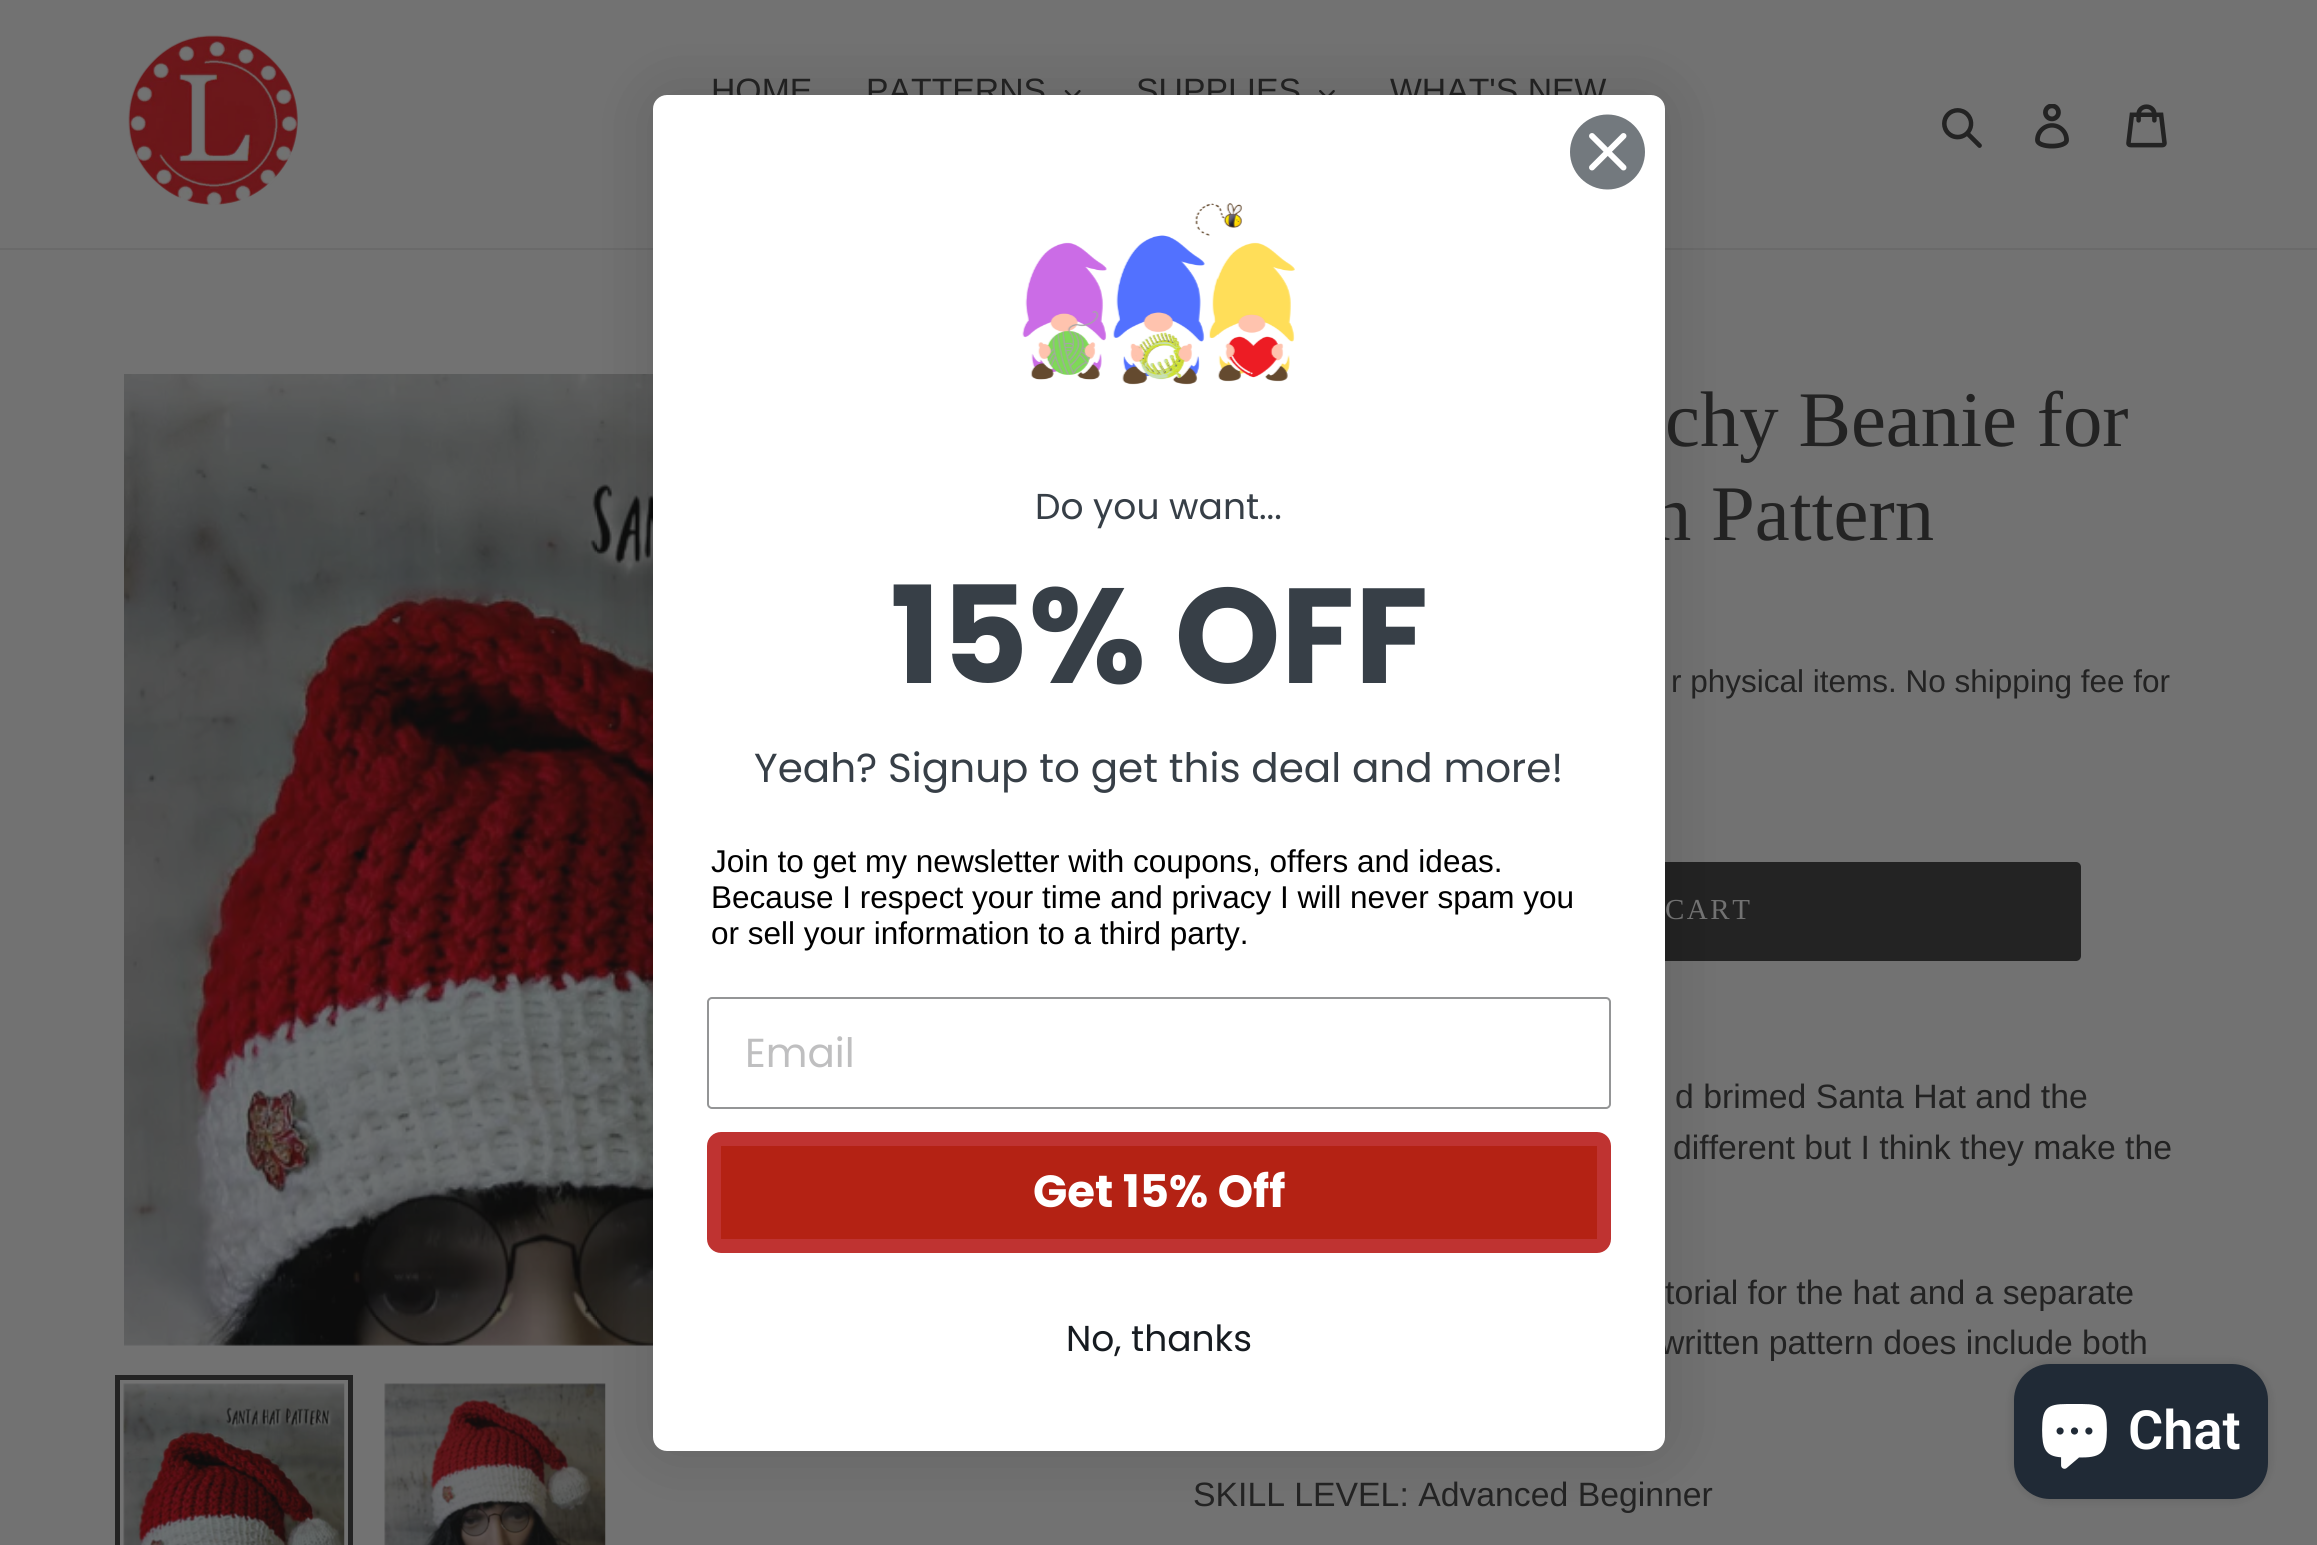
#include <cairo.h>
#include <math.h>
#include <stddef.h>


static void set_color(cairo_t *cr, unsigned color) {
    cairo_set_source_rgb(cr, (color >> 16) / 255.0, (color >> 8 & 255) / 255.0, (color & 255) / 255.0);
}

static void draw_text(cairo_t *cr, double x, double y, const char *s, const char *family, double size, int italic, int bold, unsigned color) {
    cairo_select_font_face(cr, family, italic ? CAIRO_FONT_SLANT_ITALIC : CAIRO_FONT_SLANT_NORMAL,
        bold ? CAIRO_FONT_WEIGHT_BOLD : CAIRO_FONT_WEIGHT_NORMAL);
    cairo_set_font_size(cr, size);
    set_color(cr, color);
    cairo_move_to(cr, x, y);
    cairo_show_text(cr, s);
}

static void draw_spaced(cairo_t *cr, double x, double y, const char *s, double letter, double word) {
    cairo_move_to(cr, x, y);
    while (*s) {
        char ch[5] = {0};
        int n = 0;
        do ch[n++] = *s++; while ((*s & 0xC0) == 0x80);
        cairo_show_text(cr, ch);
        cairo_rel_move_to(cr, letter + word * (*ch == ' '), 0);
    }
}

static void fill_rect(cairo_t *cr, double x, double y, double w, double h, unsigned color) {
    set_color(cr, color);
    cairo_rectangle(cr, x, y, w, h);
    cairo_fill(cr);
}

static void rounded_rect(cairo_t *cr, double x, double y, double w, double h, double r) {
    cairo_new_sub_path(cr);
    cairo_arc(cr, x + w - r, y + h - r, r, 0, M_PI / 2);
    cairo_arc(cr, x + r, y + h - r, r, M_PI / 2, M_PI);
    cairo_arc(cr, x + r, y + r, r, M_PI, 1.5 * M_PI);
    cairo_arc(cr, x + w - r, y + r, r, 1.5 * M_PI, 2 * M_PI);
    cairo_close_path(cr);
}

static void draw_shadow(cairo_t *cr, double x, double y, double w, double h, double r, double blur, double alpha) {
    cairo_push_group_with_content(cr, CAIRO_CONTENT_ALPHA);
    cairo_set_operator(cr, CAIRO_OPERATOR_SOURCE);
    for (int i = 15; i >= -15 && fmin(w, h) + blur * i / 3 > 0; i -= 2) {
        double e = blur * i / 6;
        cairo_set_source_rgba(cr, 0, 0, 0, alpha * erfc((i - 1) / 8.5) / 2);
        rounded_rect(cr, x - e, y - e, w + 2 * e, h + 2 * e, fmax(0, fmin(r + e + blur * .6, fmin(w, h) / 2 + e)));
        cairo_fill(cr);
    }
    cairo_pattern_t *soft = cairo_pop_group(cr);
    cairo_mask(cr, soft);
    cairo_pattern_destroy(soft);
}

static void draw_image(cairo_t *cr, const char *path, double x, double y, double w, double h) {
    cairo_surface_t *image = cairo_image_surface_create_from_png(path);
    cairo_save(cr);
    cairo_set_source_surface(cr, image, x, y);
    cairo_rectangle(cr, x, y, w, h);
    cairo_fill(cr);
    cairo_restore(cr);
    cairo_surface_destroy(image);
}

int main(void) {
    cairo_surface_t *surface = cairo_image_surface_create(CAIRO_FORMAT_RGB24, 2317, 1545);
    cairo_t *cr = cairo_create(surface);
    cairo_font_options_t *options = cairo_font_options_create();
    cairo_font_options_set_hint_metrics(options, CAIRO_HINT_METRICS_OFF);
    cairo_font_options_set_hint_style(options, CAIRO_HINT_STYLE_NONE);
    cairo_set_font_options(cr, options);
    cairo_set_miter_limit(cr, 4);
    set_color(cr, 0x727272);
    cairo_paint(cr);
    fill_rect(cr, 0, 248, 2317, 2, 0x6A6A6A);
    draw_image(cr, "assets/img1.png", 128, 35, 170, 170);
    draw_text(cr, 711, 102, "HOME", "Liberation Sans", 33.75, 0, 0, 0x232323);
    draw_text(cr, 866, 102, "PATTERNS", "Liberation Sans", 33.75, 0, 0, 0x232323);
    draw_image(cr, "assets/img2.png", 1064, 90, 17, 5);
    draw_text(cr, 1136, 102, "SUPPLIES", "Liberation Sans", 33.75, 0, 0, 0x232323);
    draw_image(cr, "assets/img3.png", 1319, 90, 16, 5);
    draw_text(cr, 1390, 102, "WHAT'S NEW", "Liberation Sans", 33.75, 0, 0, 0x232323);
    draw_image(cr, "assets/img4.png", 1942, 108, 40, 40);
    draw_image(cr, "assets/img5.png", 2035, 104, 34, 45);
    draw_image(cr, "assets/img6.png", 2126, 104, 41, 44);
    draw_image(cr, "assets/img8.png", 124, 374, 529, 972);
    draw_image(cr, "assets/img10.png", 384, 1383, 222, 162);
    rounded_rect(cr, 1204, 862, 877, 99, 5);
    cairo_fill(cr);
    set_color(cr, 0x000000);
    draw_shadow(cr, 653, 95, 1012, 1356, 14, 34, 0.15);
    draw_text(cr, 1652, 540, "n Pattern", "Liberation Serif", 78.75, 0, 0, 0x232323);
    draw_text(cr, 1660, 1354, "written pattern does include both", "Liberation Sans", 33.75, 0, 0, 0x232323);
    set_color(cr, 0xFFFFFF);
    rounded_rect(cr, 653, 95, 1012, 1356, 14);
    cairo_fill(cr);
    set_color(cr, 0x73797E);
    cairo_arc(cr, 1607.5, 152, 37.5, 0, 2 * M_PI);
    cairo_fill(cr);
    cairo_new_path(cr);
    cairo_move_to(cr, 1592, 136);
    cairo_line_to(cr, 1623.5, 167.5);
    cairo_move_to(cr, 1592, 167.5);
    cairo_line_to(cr, 1623.5, 136);
    cairo_close_path(cr);
    set_color(cr, 0xFFFFFF);
    cairo_set_line_width(cr, 5.9);
    cairo_set_line_cap(cr, CAIRO_LINE_CAP_ROUND);
    cairo_set_line_join(cr, CAIRO_LINE_JOIN_ROUND);
    cairo_stroke(cr);
    draw_image(cr, "assets/img7.png", 1022, 203, 273, 182);
    draw_text(cr, 1035, 519, "Do you want...", "Poppins", 36, 0, 0, 0x373F47);
    draw_text(cr, 890, 683, "15% OFF", "Poppins", 135, 0, 1, 0x373F47);
    draw_text(cr, 754, 782, "Yeah? Signup to get this deal and more!", "Poppins", 40.5, 0, 0, 0x373F47);
    draw_text(cr, 711, 872, "Join to get my newsletter with coupons, offers and ideas.", "Liberation Sans", 31.5, 0, 0, 0x000000);
    draw_text(cr, 711, 908, "Because I respect your time and privacy I will never spam you", "Liberation Sans", 31.5, 0, 0, 0x000000);
    draw_text(cr, 711, 944, "or sell your information to a third party.", "Liberation Sans", 31.5, 0, 0, 0x000000);
    rounded_rect(cr, 708, 998, 902, 110, 4);
    set_color(cr, 0x949596);
    cairo_set_line_width(cr, 2);
    cairo_set_line_cap(cr, CAIRO_LINE_CAP_BUTT);
    cairo_set_line_join(cr, CAIRO_LINE_JOIN_MITER);
    cairo_stroke(cr);
    draw_text(cr, 745, 1067, "Email", "Poppins", 40.5, 0, 0, 0xBFBFC0);
    set_color(cr, 0xB42214);
    rounded_rect(cr, 714, 1139, 890, 107, 7);
    cairo_fill_preserve(cr);
    set_color(cr, 0xBF3331);
    cairo_set_line_width(cr, 14);
    cairo_stroke(cr);
    draw_text(cr, 1033, 1207, "Get 15% Off", "Poppins", 45, 0, 1, 0xFFFFFF);
    draw_text(cr, 1066, 1351, "No, thanks", "Poppins", 36, 0, 0, 0x161B20);
    cairo_rectangle(cr, 117.5, 1377.5, 233, 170);
    set_color(cr, 0x232323);
    cairo_set_line_width(cr, 5);
    cairo_stroke(cr);
    draw_image(cr, "assets/img9.png", 123, 1383, 222, 162);
    draw_text(cr, 1665, 446, "chy Beanie for", "Liberation Serif", 78.75, 0, 0, 0x232323);
    draw_text(cr, 1671, 692, "r physical items. No shipping fee for", "Liberation Sans", 31.5, 0, 0, 0x232323);
    cairo_select_font_face(cr, "Liberation Serif", CAIRO_FONT_SLANT_NORMAL, CAIRO_FONT_WEIGHT_NORMAL);
    cairo_set_font_size(cr, 29);
    set_color(cr, 0x727272);
    draw_spaced(cr, 1665, 919, "CART", 2.5, 0);
    draw_text(cr, 1675, 1108, "d brimed Santa Hat and the", "Liberation Sans", 33.75, 0, 0, 0x232323);
    draw_text(cr, 1673, 1159, "different but I think they make the", "Liberation Sans", 33.75, 0, 0, 0x232323);
    draw_text(cr, 1665, 1304, "torial for the hat and a separate", "Liberation Sans", 33.75, 0, 0, 0x232323);
    draw_text(cr, 1193, 1506, "SKILL LEVEL: Advanced Beginner", "Liberation Sans", 33.75, 0, 0, 0x232323);
    set_color(cr, 0x000000);
    draw_shadow(cr, 2014, 1364, 254, 135, 36, 5.5, 0.15);
    set_color(cr, 0x202A36);
    rounded_rect(cr, 2014, 1364, 254, 135, 36);
    cairo_fill(cr);
    draw_image(cr, "assets/img11.png", 2042, 1404, 65, 65);
    draw_text(cr, 2128, 1449, "Chat", "Roboto SemiBold", 54, 0, 0, 0xFFFFFF);
    cairo_surface_write_to_png(surface, "output.png");
    cairo_font_options_destroy(options);
    cairo_destroy(cr);
    cairo_surface_destroy(surface);
    return 0;
}
